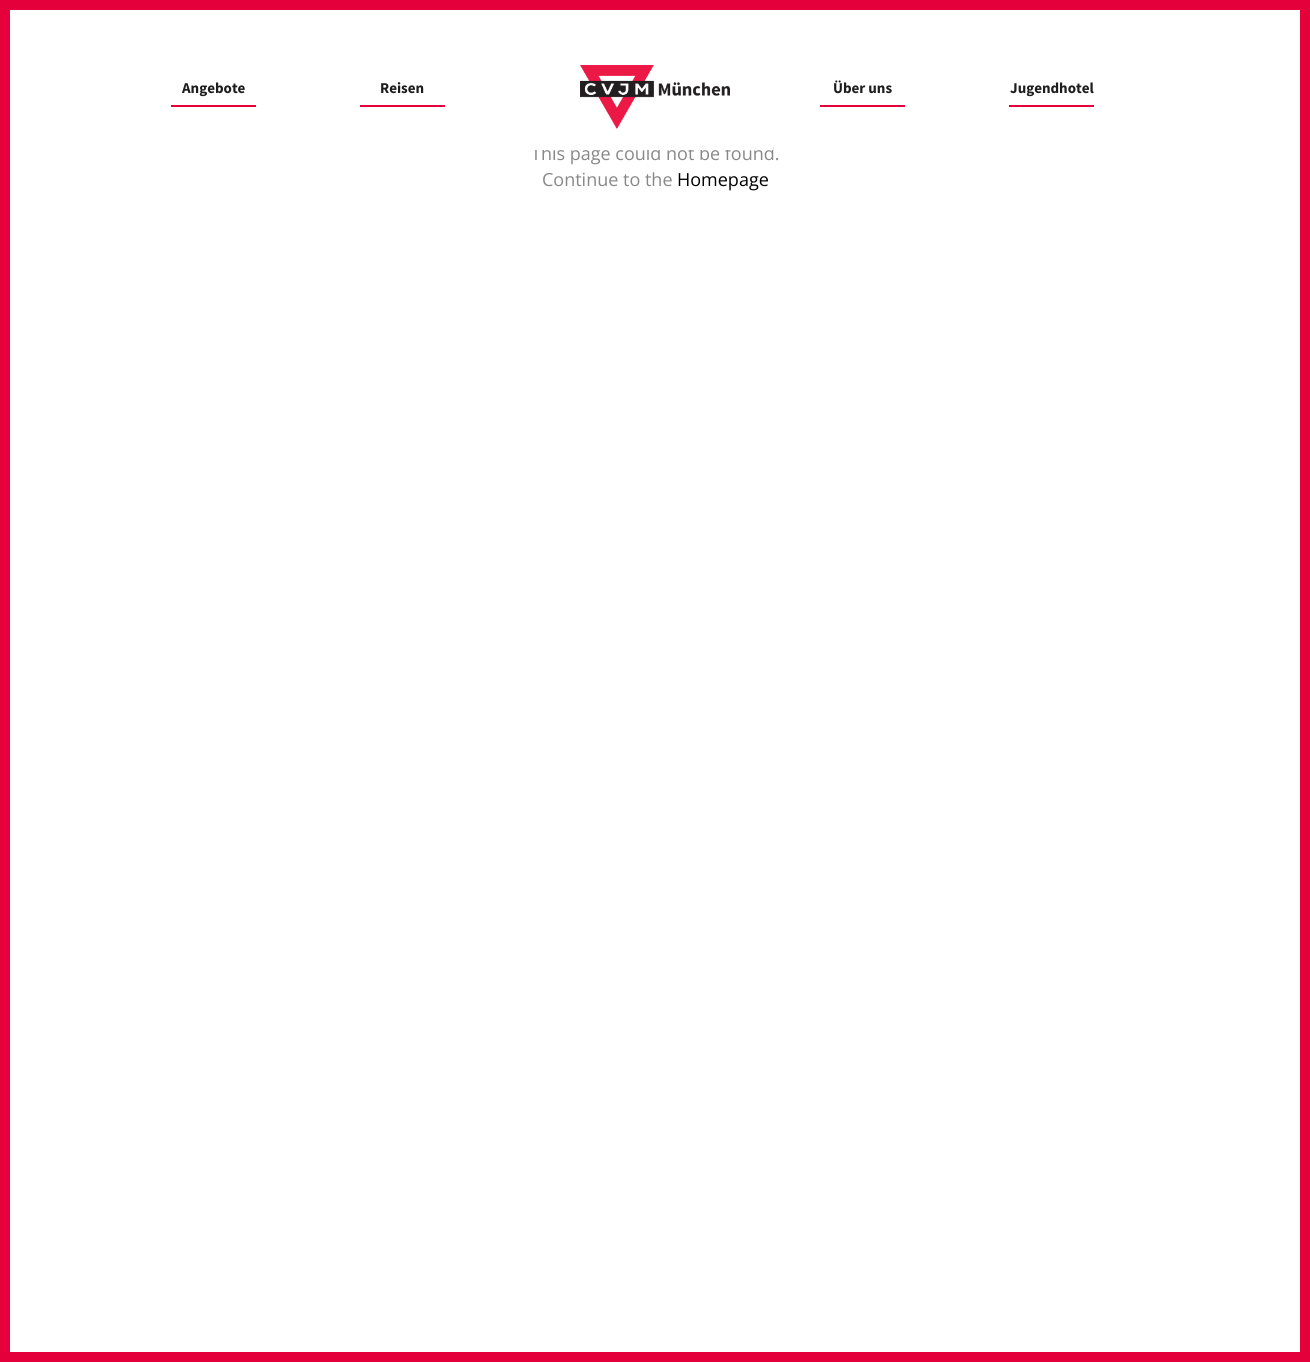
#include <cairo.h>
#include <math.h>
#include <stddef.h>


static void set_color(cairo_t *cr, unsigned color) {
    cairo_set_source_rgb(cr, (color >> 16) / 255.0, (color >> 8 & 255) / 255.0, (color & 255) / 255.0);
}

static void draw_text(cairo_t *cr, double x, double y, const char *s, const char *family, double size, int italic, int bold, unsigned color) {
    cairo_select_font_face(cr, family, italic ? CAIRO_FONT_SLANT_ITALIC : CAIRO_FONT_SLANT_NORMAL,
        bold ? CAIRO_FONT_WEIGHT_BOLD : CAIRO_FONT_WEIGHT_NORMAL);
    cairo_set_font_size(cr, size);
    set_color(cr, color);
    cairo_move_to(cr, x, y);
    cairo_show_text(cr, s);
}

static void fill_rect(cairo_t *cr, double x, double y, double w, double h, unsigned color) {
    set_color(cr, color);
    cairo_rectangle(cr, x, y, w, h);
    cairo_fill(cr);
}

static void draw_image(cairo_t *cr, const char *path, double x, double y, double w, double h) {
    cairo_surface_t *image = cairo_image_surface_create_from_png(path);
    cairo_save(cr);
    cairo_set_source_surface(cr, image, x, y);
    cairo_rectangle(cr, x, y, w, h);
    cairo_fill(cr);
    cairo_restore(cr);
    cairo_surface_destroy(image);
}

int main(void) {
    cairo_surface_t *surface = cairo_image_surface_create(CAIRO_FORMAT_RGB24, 1310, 1362);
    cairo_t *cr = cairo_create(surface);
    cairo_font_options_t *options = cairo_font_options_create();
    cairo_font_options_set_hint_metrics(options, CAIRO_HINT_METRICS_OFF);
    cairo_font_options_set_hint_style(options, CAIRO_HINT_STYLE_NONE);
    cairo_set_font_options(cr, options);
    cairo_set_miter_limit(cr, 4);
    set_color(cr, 0xFFFFFF);
    cairo_paint(cr);
    draw_text(cr, 531, 160, "This page could not be found.", "Open Sans", 18, 0, 0, 0x888888);
    fill_rect(cr, 530, 146, 243, 4, 0xFFFFFF);
    fill_rect(cr, 10, 0, 1290, 10, 0xE4003A);
    fill_rect(cr, 171, 105, 85, 2, 0xE4003A);
    draw_text(cr, 182, 93, "Angebote", "Source Sans Pro", 15, 0, 1, 0x1D1D1D);
    fill_rect(cr, 360, 105, 85, 2, 0xE4003A);
    draw_text(cr, 380, 93, "Reisen", "Source Sans Pro", 15, 0, 1, 0x1D1D1D);
    draw_image(cr, "assets/img1.png", 580, 65, 150, 64);
    fill_rect(cr, 820, 105, 85, 2, 0xE4003A);
    draw_text(cr, 833, 93, "Über uns", "Source Sans Pro", 15, 0, 1, 0x1D1D1D);
    fill_rect(cr, 1009, 105, 85, 2, 0xE4003A);
    draw_text(cr, 1010, 93, "Jugendhotel", "Source Sans Pro", 15, 0, 1, 0x1D1D1D);
    fill_rect(cr, 1300, 0, 10, 1352, 0xE4003A);
    fill_rect(cr, 10, 1352, 1300, 10, 0xE4003A);
    fill_rect(cr, 0, 0, 10, 1362, 0xE4003A);
    draw_text(cr, 542, 186, "Continue to the", "Open Sans", 18, 0, 0, 0x888888);
    draw_text(cr, 677, 186, "Homepage", "Open Sans", 18, 0, 0, 0x000000);
    cairo_surface_write_to_png(surface, "output.png");
    cairo_font_options_destroy(options);
    cairo_destroy(cr);
    cairo_surface_destroy(surface);
    return 0;
}
